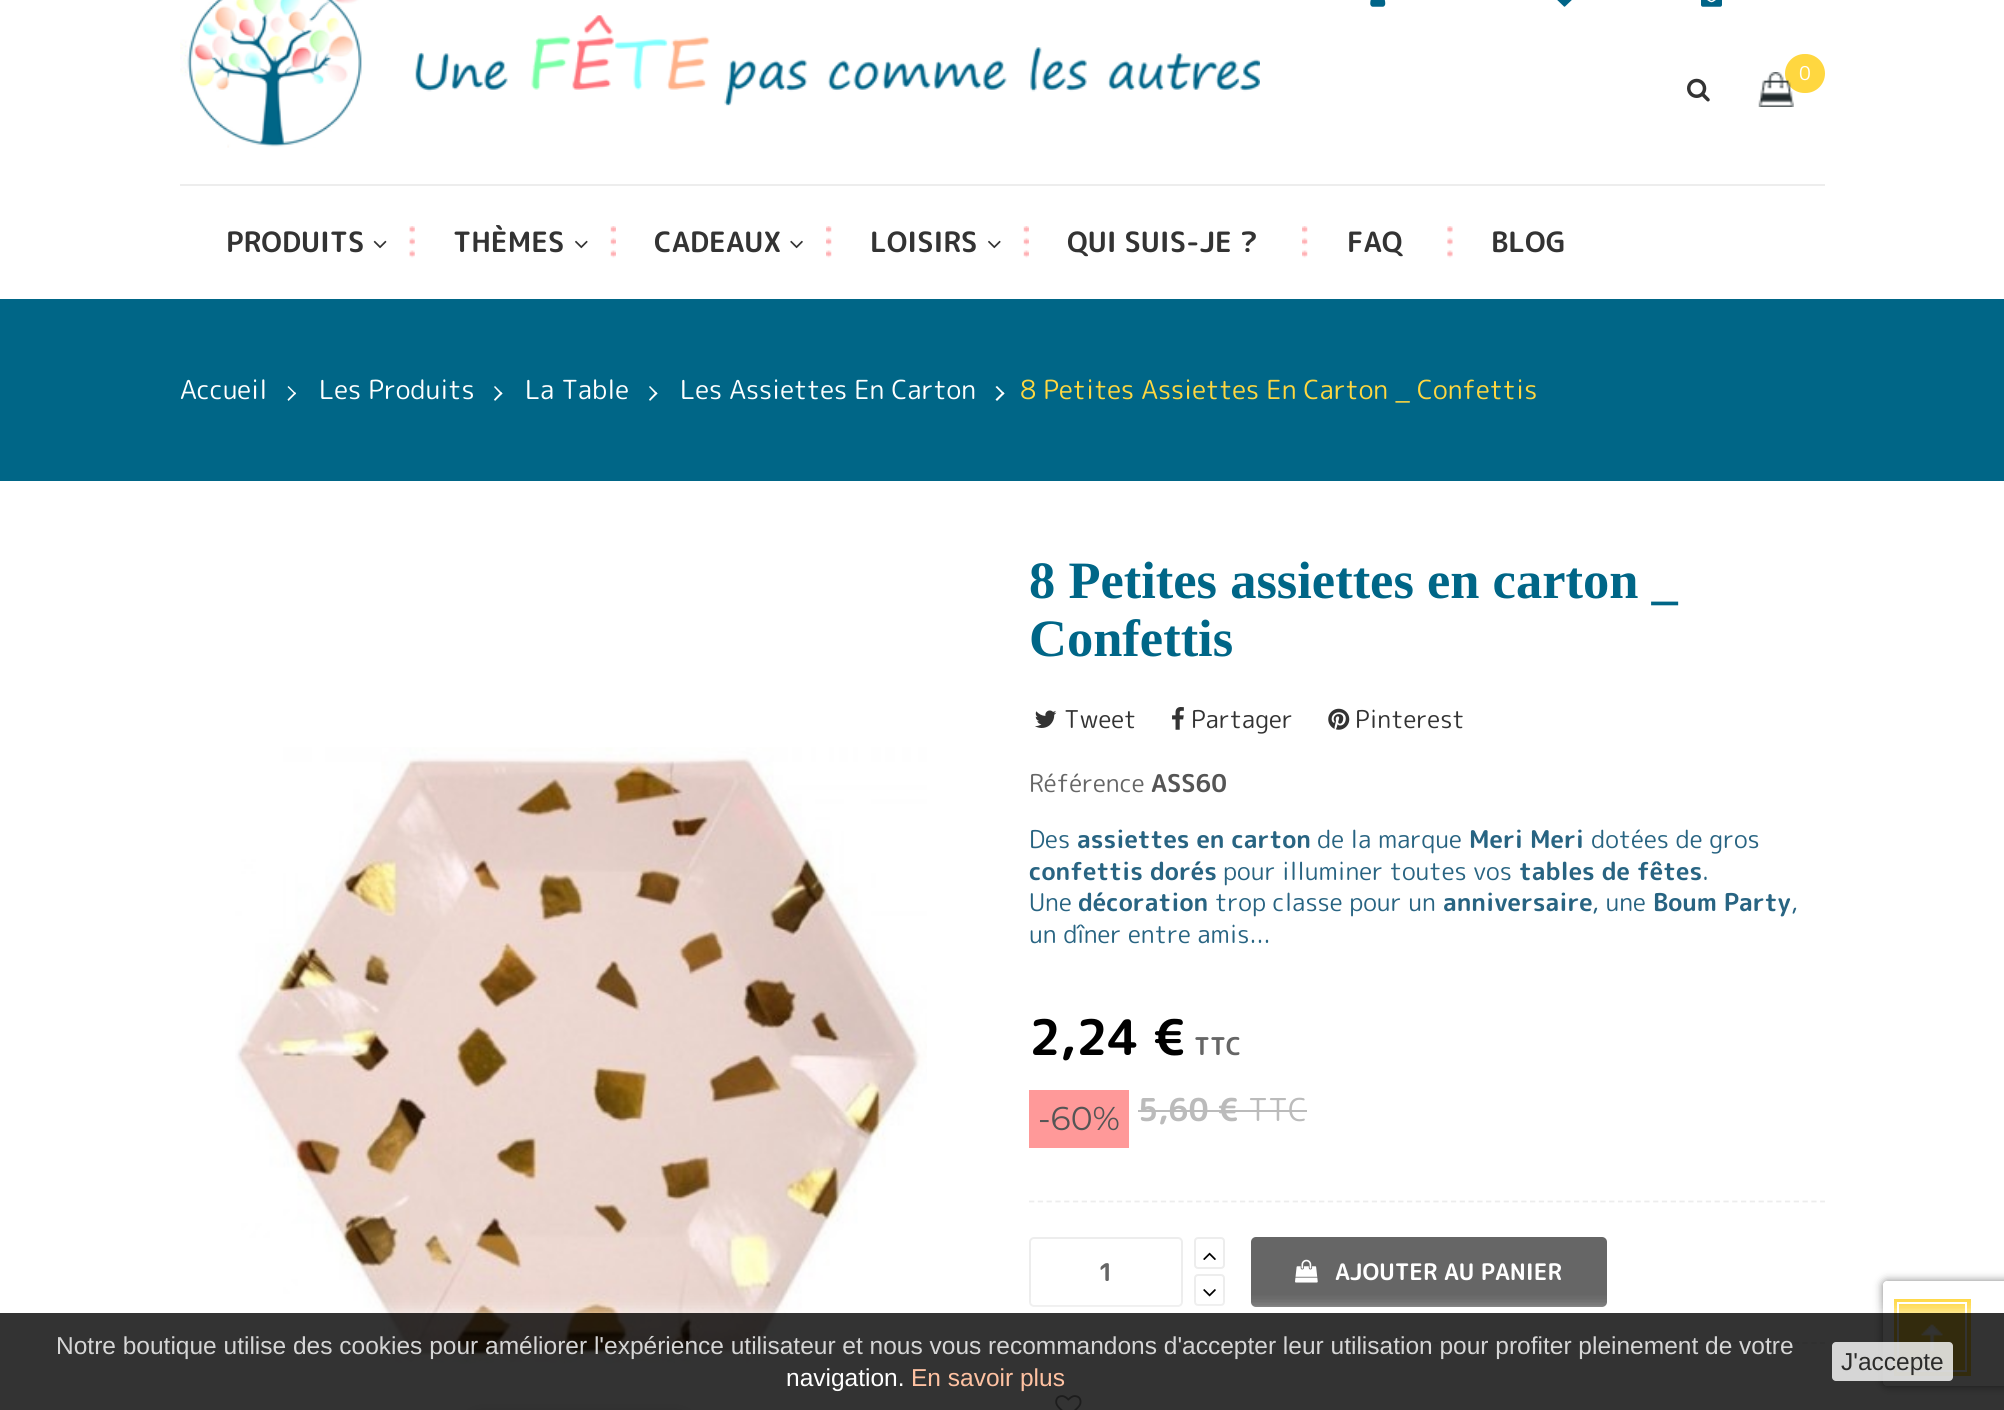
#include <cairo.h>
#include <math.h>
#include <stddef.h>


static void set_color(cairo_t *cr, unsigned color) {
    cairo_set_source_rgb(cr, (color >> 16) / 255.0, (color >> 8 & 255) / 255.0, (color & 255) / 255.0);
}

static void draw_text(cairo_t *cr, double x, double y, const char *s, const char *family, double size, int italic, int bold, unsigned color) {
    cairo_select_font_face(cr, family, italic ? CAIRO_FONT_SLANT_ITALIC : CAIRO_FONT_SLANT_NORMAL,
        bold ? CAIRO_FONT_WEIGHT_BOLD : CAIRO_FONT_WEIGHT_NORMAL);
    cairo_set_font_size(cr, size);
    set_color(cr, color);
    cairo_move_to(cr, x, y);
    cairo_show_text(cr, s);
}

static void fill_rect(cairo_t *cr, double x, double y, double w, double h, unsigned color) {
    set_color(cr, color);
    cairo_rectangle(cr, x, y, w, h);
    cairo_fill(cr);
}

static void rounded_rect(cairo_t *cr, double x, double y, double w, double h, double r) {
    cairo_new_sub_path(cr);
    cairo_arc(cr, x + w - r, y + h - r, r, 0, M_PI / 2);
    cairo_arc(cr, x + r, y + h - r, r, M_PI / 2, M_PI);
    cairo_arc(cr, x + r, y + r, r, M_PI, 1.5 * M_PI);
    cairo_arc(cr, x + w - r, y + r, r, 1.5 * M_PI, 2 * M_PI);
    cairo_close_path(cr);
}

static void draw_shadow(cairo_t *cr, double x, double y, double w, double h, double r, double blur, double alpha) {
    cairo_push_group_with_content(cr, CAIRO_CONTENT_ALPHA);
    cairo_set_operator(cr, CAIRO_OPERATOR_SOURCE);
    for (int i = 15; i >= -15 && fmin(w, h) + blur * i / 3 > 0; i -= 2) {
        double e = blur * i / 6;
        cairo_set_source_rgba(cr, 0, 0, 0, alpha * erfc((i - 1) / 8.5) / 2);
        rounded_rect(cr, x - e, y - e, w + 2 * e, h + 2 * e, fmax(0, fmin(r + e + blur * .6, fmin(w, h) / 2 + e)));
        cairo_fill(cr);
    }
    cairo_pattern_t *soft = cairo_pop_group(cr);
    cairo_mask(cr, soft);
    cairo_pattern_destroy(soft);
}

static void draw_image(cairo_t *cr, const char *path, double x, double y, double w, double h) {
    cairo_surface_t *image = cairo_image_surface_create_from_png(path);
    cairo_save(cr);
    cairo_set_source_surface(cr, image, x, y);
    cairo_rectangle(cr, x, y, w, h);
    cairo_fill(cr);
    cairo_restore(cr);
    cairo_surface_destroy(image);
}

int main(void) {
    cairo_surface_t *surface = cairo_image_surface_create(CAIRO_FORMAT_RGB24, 2004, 1410);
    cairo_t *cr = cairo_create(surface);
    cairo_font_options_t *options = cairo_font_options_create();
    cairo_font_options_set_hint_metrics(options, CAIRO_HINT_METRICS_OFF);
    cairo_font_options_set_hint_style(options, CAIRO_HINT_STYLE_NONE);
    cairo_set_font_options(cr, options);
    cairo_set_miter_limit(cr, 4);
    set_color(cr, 0xFFFFFF);
    cairo_paint(cr);
    draw_image(cr, "assets/img1.png", 1370, 0, 16, 7);
    draw_image(cr, "assets/img2.png", 1557, 0, 15, 7);
    draw_image(cr, "assets/img3.png", 1701, 0, 21, 7);
    draw_image(cr, "assets/img4.png", 180, 0, 1080, 148);
    set_color(cr, 0xFFD740);
    rounded_rect(cr, 1785, 54, 40, 39, 19.5);
    cairo_fill(cr);
    cairo_new_path(cr);
    cairo_move_to(cr, 1805, 54.5);
    cairo_curve_to(cr, 1812, 54.5, 1818, 63, 1818, 73.5);
    cairo_curve_to(cr, 1818, 84, 1812, 92.5, 1805, 92.5);
    cairo_curve_to(cr, 1798, 92.5, 1792, 84, 1792, 73.5);
    cairo_curve_to(cr, 1792, 63, 1798, 54.5, 1805, 54.5);
    cairo_close_path(cr);
    cairo_fill(cr);
    draw_image(cr, "assets/img5.png", 1758, 72, 36, 35);
    draw_text(cr, 1799, 80, "0", "Rounded Mplus 1c", 19, 0, 0, 0xFFFFFF);
    draw_image(cr, "assets/img6.png", 1687, 78, 23, 24);
    fill_rect(cr, 180, 184, 1645, 2, 0xEDEDED);
    draw_text(cr, 226, 252, "PRODUITS", "Rounded Mplus 1c Bold", 28, 0, 1, 0x333333);
    draw_image(cr, "assets/img7.png", 373, 240, 14, 9);
    draw_image(cr, "assets/img8.png", 409, 226, 6, 32);
    cairo_set_source_rgba(cr, 1, 1, 1, 0.2);
    cairo_rectangle(cr, 409, 227, 1, 29);
    cairo_fill(cr);
    draw_text(cr, 453, 252, "THÈMES", "Rounded Mplus 1c Bold", 28, 0, 1, 0x333333);
    draw_image(cr, "assets/img9.png", 575, 240, 13, 9);
    draw_image(cr, "assets/img10.png", 610, 226, 6, 32);
    cairo_set_source_rgba(cr, 1, 1, 1, 0.2);
    cairo_rectangle(cr, 610, 228, 1, 27);
    cairo_fill(cr);
    draw_text(cr, 654, 252, "CADEAUX", "Rounded Mplus 1c Bold", 28, 0, 1, 0x333333);
    draw_image(cr, "assets/img11.png", 790, 240, 13, 9);
    draw_image(cr, "assets/img12.png", 826, 226, 6, 32);
    draw_text(cr, 870, 252, "LOISIRS", "Rounded Mplus 1c Bold", 28, 0, 1, 0x333333);
    draw_image(cr, "assets/img9.png", 988, 240, 13, 9);
    draw_image(cr, "assets/img13.png", 1023, 226, 6, 32);
    cairo_set_source_rgba(cr, 1, 1, 1, 0.2);
    cairo_rectangle(cr, 1023, 228, 1, 27);
    cairo_fill(cr);
    draw_text(cr, 1067, 252, "QUI SUIS-JE ?", "Rounded Mplus 1c Bold", 28, 0, 1, 0x333333);
    draw_image(cr, "assets/img14.png", 1302, 226, 6, 32);
    draw_text(cr, 1347, 252, "FAQ", "Rounded Mplus 1c Bold", 28, 0, 1, 0x333333);
    draw_image(cr, "assets/img15.png", 1447, 226, 6, 32);
    cairo_set_source_rgba(cr, 1, 1, 1, 0.2);
    cairo_rectangle(cr, 1447, 227, 1, 29);
    cairo_fill(cr);
    draw_text(cr, 1491, 252, "BLOG", "Rounded Mplus 1c Bold", 28, 0, 1, 0x333333);
    fill_rect(cr, 0, 299, 2004, 182, 0x006687);
    draw_text(cr, 180, 399, "Accueil", "Rounded Mplus 1c", 26.25, 0, 0, 0xFFFFFF);
    cairo_new_path(cr);
    cairo_move_to(cr, 288.5, 386);
    cairo_line_to(cr, 296, 393.5);
    cairo_line_to(cr, 295, 394.5);
    cairo_line_to(cr, 287.5, 387);
    cairo_close_path(cr);
    cairo_fill(cr);
    cairo_new_path(cr);
    cairo_move_to(cr, 295, 392);
    cairo_line_to(cr, 296, 393.5);
    cairo_line_to(cr, 288.5, 401);
    cairo_line_to(cr, 287.5, 399.5);
    cairo_close_path(cr);
    cairo_fill(cr);
    draw_text(cr, 319, 399, "Les Produits", "Rounded Mplus 1c", 26.25, 0, 0, 0xFFFFFF);
    cairo_new_path(cr);
    cairo_move_to(cr, 495, 386);
    cairo_line_to(cr, 502.5, 393.5);
    cairo_line_to(cr, 501, 394.5);
    cairo_line_to(cr, 494, 387);
    cairo_close_path(cr);
    cairo_fill(cr);
    cairo_new_path(cr);
    cairo_move_to(cr, 501, 392);
    cairo_line_to(cr, 502.5, 393.5);
    cairo_line_to(cr, 495, 401);
    cairo_line_to(cr, 494, 399.5);
    cairo_close_path(cr);
    cairo_fill(cr);
    draw_text(cr, 525, 399, "La Table", "Rounded Mplus 1c", 26.25, 0, 0, 0xFFFFFF);
    cairo_new_path(cr);
    cairo_move_to(cr, 650, 386);
    cairo_line_to(cr, 657.5, 393.5);
    cairo_line_to(cr, 656, 394.5);
    cairo_line_to(cr, 649, 387);
    cairo_close_path(cr);
    cairo_fill(cr);
    cairo_new_path(cr);
    cairo_move_to(cr, 656, 392);
    cairo_line_to(cr, 657.5, 393.5);
    cairo_line_to(cr, 650, 401);
    cairo_line_to(cr, 649, 399.5);
    cairo_close_path(cr);
    cairo_fill(cr);
    draw_text(cr, 680, 399, "Les Assiettes En Carton", "Rounded Mplus 1c", 26.25, 0, 0, 0xFFFFFF);
    cairo_new_path(cr);
    cairo_move_to(cr, 997, 386);
    cairo_line_to(cr, 1004.5, 393.5);
    cairo_line_to(cr, 1003, 394.5);
    cairo_line_to(cr, 995.5, 387);
    cairo_close_path(cr);
    cairo_fill(cr);
    cairo_new_path(cr);
    cairo_move_to(cr, 1003, 392);
    cairo_line_to(cr, 1004.5, 393.5);
    cairo_line_to(cr, 997, 401);
    cairo_line_to(cr, 995.5, 399.5);
    cairo_close_path(cr);
    cairo_fill(cr);
    draw_text(cr, 1020, 399, "8 Petites Assiettes En Carton _ Confettis", "Rounded Mplus 1c", 26.25, 0, 0, 0xFFD740);
    draw_image(cr, "assets/img16.png", 235, 747, 692, 617);
    set_color(cr, 0x000000);
    draw_shadow(cr, 460, 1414, 238, 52, 35, 7, 0.16);
    draw_text(cr, 1029, 598, "8 Petites assiettes en carton _", "Liberation Serif", 52.5, 0, 1, 0x006687);
    draw_text(cr, 1029, 656, "Confettis", "Liberation Serif", 52.5, 0, 1, 0x006687);
    draw_image(cr, "assets/img17.png", 1035, 710, 22, 18);
    draw_text(cr, 1064, 728, "Tweet", "Rounded Mplus 1c", 24.5, 0, 0, 0x333333);
    draw_image(cr, "assets/img18.png", 1172, 707, 12, 23);
    draw_text(cr, 1191, 728, "Partager", "Rounded Mplus 1c", 24.5, 0, 0, 0x333333);
    draw_image(cr, "assets/img19.png", 1328, 708, 22, 22);
    draw_text(cr, 1355, 728, "Pinterest", "Rounded Mplus 1c", 24.5, 0, 0, 0x333333);
    draw_text(cr, 1029, 792, "Référence", "Rounded Mplus 1c", 24.5, 0, 0, 0x666666);
    draw_text(cr, 1151, 792, "ASS60", "Rounded Mplus 1c Bold", 24.5, 0, 1, 0x555555);
    draw_text(cr, 1029, 848, "Des", "Rounded Mplus 1c", 24.5, 0, 0, 0x286482);
    draw_text(cr, 1077, 848, "assiettes en carton", "Rounded Mplus 1c Bold", 24.5, 0, 1, 0x286482);
    draw_text(cr, 1317, 848, "de la marque", "Rounded Mplus 1c", 24.5, 0, 0, 0x286482);
    draw_text(cr, 1469, 848, "Meri Meri", "Rounded Mplus 1c Bold", 24.5, 0, 1, 0x286482);
    draw_text(cr, 1591, 848, "dotées de gros", "Rounded Mplus 1c", 24.5, 0, 0, 0x286482);
    draw_text(cr, 1029, 880, "confettis dorés", "Rounded Mplus 1c Bold", 24.5, 0, 1, 0x286482);
    draw_text(cr, 1223, 880, "pour illuminer toutes vos", "Rounded Mplus 1c", 24.5, 0, 0, 0x286482);
    draw_text(cr, 1519, 880, "tables de fêtes", "Rounded Mplus 1c Bold", 24.5, 0, 1, 0x286482);
    draw_text(cr, 1702, 880, ".", "Rounded Mplus 1c", 24.5, 0, 0, 0x286482);
    draw_text(cr, 1029, 911, "Une", "Rounded Mplus 1c", 24.5, 0, 0, 0x286482);
    draw_text(cr, 1078, 911, "décoration", "Rounded Mplus 1c Bold", 24.5, 0, 1, 0x286482);
    draw_text(cr, 1215, 911, "trop classe pour un", "Rounded Mplus 1c", 24.5, 0, 0, 0x286482);
    draw_text(cr, 1443, 911, "anniversaire", "Rounded Mplus 1c Bold", 24.5, 0, 1, 0x286482);
    draw_text(cr, 1592, 911, ", une", "Rounded Mplus 1c", 24.5, 0, 0, 0x286482);
    draw_text(cr, 1653, 911, "Boum Party", "Rounded Mplus 1c Bold", 24.5, 0, 1, 0x286482);
    draw_text(cr, 1791, 911, ",", "Rounded Mplus 1c", 24.5, 0, 0, 0x286482);
    draw_text(cr, 1029, 943, "un dîner entre amis...", "Rounded Mplus 1c", 24.5, 0, 0, 0x286482);
    draw_text(cr, 1029, 1055, "2,24 €", "Rounded Mplus 1c Bold", 49, 0, 1, 0x000000);
    draw_text(cr, 1194, 1055, "TTC", "Rounded Mplus 1c Bold", 24.5, 0, 1, 0x666666);
    fill_rect(cr, 1029, 1090, 100, 58, 0xFF9999);
    draw_text(cr, 1038, 1130, "-60%", "Montserrat", 33, 0, 0, 0x555555);
    draw_text(cr, 1138, 1121, "5,60 €", "Rounded Mplus 1c Bold", 31.5, 0, 1, 0xBBBBBB);
    fill_rect(cr, 1138, 1110, 101, 2, 0xBBBBBB);
    fill_rect(cr, 1239, 1110, 68, 2, 0xBBBBBB);
    draw_text(cr, 1248, 1121, "TTC", "Rounded Mplus 1c", 31.5, 0, 0, 0xBBBBBB);
    cairo_new_path(cr);
    cairo_move_to(cr, 1029, 1201.5);
    cairo_line_to(cr, 1825, 1201.5);
    set_color(cr, 0xEDEDED);
    cairo_set_line_width(cr, 1.8);
    cairo_set_dash(cr, (double[]){5.25, 3.54}, 2, 0);
    cairo_stroke(cr);
    cairo_new_path(cr);
    cairo_move_to(cr, 1029, 1343);
    cairo_line_to(cr, 1825, 1343);
    cairo_stroke(cr);
    rounded_rect(cr, 1195, 1238, 29, 30, 3);
    cairo_set_line_width(cr, 2);
    cairo_set_dash(cr, NULL, 0, 0);
    cairo_stroke(cr);
    draw_image(cr, "assets/img20.png", 1203, 1252, 13, 8);
    rounded_rect(cr, 1030, 1238, 152, 68, 4);
    cairo_stroke(cr);
    draw_text(cr, 1098, 1281, "1", "Rounded Mplus 1c Bold", 24.5, 0, 1, 0x666666);
    rounded_rect(cr, 1195, 1275, 29, 30, 3);
    set_color(cr, 0xEDEDED);
    cairo_stroke(cr);
    draw_image(cr, "assets/img21.png", 1203, 1289, 13, 8);
    set_color(cr, 0x666666);
    rounded_rect(cr, 1251, 1237, 356, 70, 5);
    cairo_fill(cr);
    draw_image(cr, "assets/img22.png", 1295, 1259, 23, 24);
    draw_text(cr, 1335, 1280, "AJOUTER AU PANIER", "Rounded Mplus 1c Bold", 22.75, 0, 1, 0xFFFFFF);
    draw_image(cr, "assets/img23.png", 1055, 1395, 27, 15);
    cairo_save(cr);
    cairo_set_fill_rule(cr, CAIRO_FILL_RULE_EVEN_ODD);
    cairo_new_path(cr);
    cairo_move_to(cr, 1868, 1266);
    cairo_line_to(cr, 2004, 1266);
    cairo_line_to(cr, 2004, 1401);
    cairo_line_to(cr, 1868, 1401);
    cairo_close_path(cr);
    cairo_move_to(cr, 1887, 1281);
    cairo_line_to(cr, 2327, 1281);
    cairo_curve_to(cr, 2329, 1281, 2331, 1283, 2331, 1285);
    cairo_line_to(cr, 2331, 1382);
    cairo_curve_to(cr, 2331, 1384, 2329, 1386, 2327, 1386);
    cairo_line_to(cr, 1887, 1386);
    cairo_curve_to(cr, 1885, 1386, 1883, 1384, 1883, 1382);
    cairo_line_to(cr, 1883, 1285);
    cairo_curve_to(cr, 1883, 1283, 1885, 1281, 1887, 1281);
    cairo_close_path(cr);
    cairo_clip(cr);
    set_color(cr, 0x808080);
    draw_shadow(cr, 1883, 1281, 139, 105, 4, 4.5, 1);
    cairo_restore(cr);
    fill_rect(cr, 1894, 1299, 77, 77, 0xFFD740);
    draw_image(cr, "assets/img24.png", 1921, 1324, 22, 28);
    cairo_rectangle(cr, 1898, 1303, 68, 68);
    set_color(cr, 0xFFFFFF);
    cairo_stroke(cr);
    cairo_save(cr);
    cairo_rectangle(cr, 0, 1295, 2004, 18);
    cairo_clip(cr);
    set_color(cr, 0xFFFFFF);
    draw_shadow(cr, 0, 1313, 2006, 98, 0, 9, 0.8);
    cairo_restore(cr);
    cairo_set_source_rgba(cr, 0, 0, 0, 0.8);
    cairo_rectangle(cr, 0, 1313, 2004, 97);
    cairo_fill(cr);
    draw_text(cr, 56, 1354, "Notre boutique utilise des cookies pour améliorer l'expérience utilisateur et nous vous recommandons d'accepter leur utilisation pour profiter pleinement de votre", "Liberation Sans", 24.5, 0, 0, 0xD6D6D6);
    draw_text(cr, 786, 1386, "navigation.", "Liberation Sans", 24.5, 0, 0, 0xFFFFFF);
    draw_text(cr, 911, 1386, "En savoir plus", "Liberation Sans", 24.5, 0, 0, 0xFFC2A2);
    cairo_set_source_rgba(cr, 1, 1, 1, 0.8);
    rounded_rect(cr, 1832, 1342, 121, 39, 4);
    cairo_fill(cr);
    draw_text(cr, 1841, 1370, "J'accepte", "Liberation Sans", 24.5, 0, 0, 0x2B2B2A);
    cairo_surface_write_to_png(surface, "output.png");
    cairo_font_options_destroy(options);
    cairo_destroy(cr);
    cairo_surface_destroy(surface);
    return 0;
}
